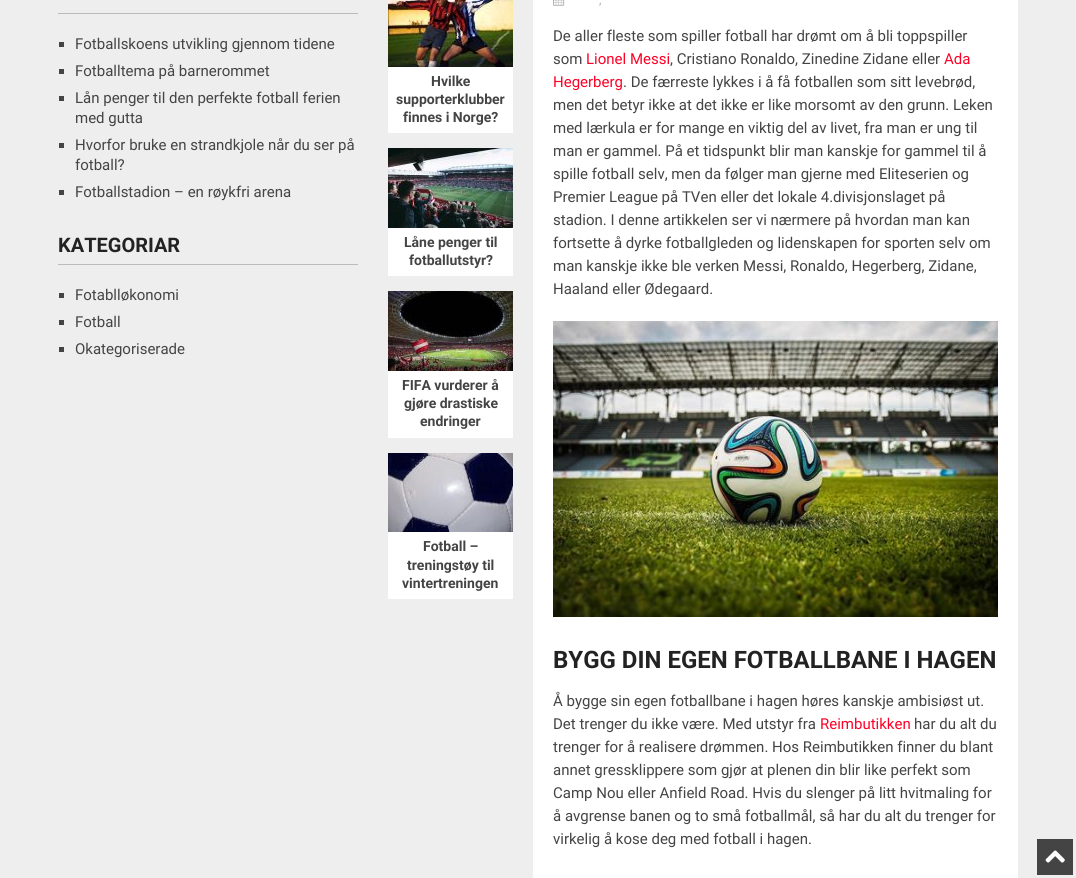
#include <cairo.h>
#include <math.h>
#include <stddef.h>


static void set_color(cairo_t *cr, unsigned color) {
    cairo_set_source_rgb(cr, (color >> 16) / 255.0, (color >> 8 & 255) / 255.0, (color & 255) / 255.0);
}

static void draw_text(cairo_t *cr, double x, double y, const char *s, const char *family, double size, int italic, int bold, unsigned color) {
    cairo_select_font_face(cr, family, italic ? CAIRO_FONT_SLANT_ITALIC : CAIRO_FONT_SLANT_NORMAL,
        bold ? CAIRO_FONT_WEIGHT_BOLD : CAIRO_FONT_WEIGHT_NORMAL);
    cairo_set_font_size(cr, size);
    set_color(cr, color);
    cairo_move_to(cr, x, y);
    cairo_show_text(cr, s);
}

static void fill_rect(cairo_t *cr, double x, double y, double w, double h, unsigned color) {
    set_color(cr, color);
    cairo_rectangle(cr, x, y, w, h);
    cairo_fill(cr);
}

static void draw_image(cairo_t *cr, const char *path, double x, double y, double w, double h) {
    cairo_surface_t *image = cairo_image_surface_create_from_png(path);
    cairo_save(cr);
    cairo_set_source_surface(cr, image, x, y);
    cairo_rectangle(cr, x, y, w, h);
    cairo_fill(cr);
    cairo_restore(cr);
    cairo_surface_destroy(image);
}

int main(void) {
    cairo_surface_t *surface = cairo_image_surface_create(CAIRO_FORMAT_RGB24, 1076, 878);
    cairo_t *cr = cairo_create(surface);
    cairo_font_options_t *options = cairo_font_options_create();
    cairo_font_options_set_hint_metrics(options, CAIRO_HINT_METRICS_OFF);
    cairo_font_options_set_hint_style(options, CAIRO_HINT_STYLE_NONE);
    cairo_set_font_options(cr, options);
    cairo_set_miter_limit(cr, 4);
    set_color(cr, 0xEEEEEE);
    cairo_paint(cr);
    fill_rect(cr, 58, 13, 300, 1, 0xBBBBBB);
    fill_rect(cr, 59, 42, 5, 5, 0x444444);
    draw_text(cr, 75, 49, "Fotballskoens utvikling gjennom tidene", "Roboto", 15, 0, 0, 0x444444);
    fill_rect(cr, 59, 69, 5, 5, 0x444444);
    draw_text(cr, 75, 76, "Fotballtema på barnerommet", "Roboto", 15, 0, 0, 0x444444);
    fill_rect(cr, 59, 96, 5, 5, 0x444444);
    draw_text(cr, 75, 103, "Lån penger til den perfekte fotball ferien", "Roboto", 15, 0, 0, 0x444444);
    draw_text(cr, 75, 123, "med gutta", "Roboto", 15, 0, 0, 0x444444);
    fill_rect(cr, 59, 143, 5, 5, 0x444444);
    draw_text(cr, 75, 150, "Hvorfor bruke en strandkjole når du ser på", "Roboto", 15, 0, 0, 0x444444);
    draw_text(cr, 75, 170, "fotball?", "Roboto", 15, 0, 0, 0x444444);
    fill_rect(cr, 59, 190, 5, 5, 0x444444);
    draw_text(cr, 75, 197, "Fotballstadion – en røykfri arena", "Roboto", 15, 0, 0, 0x444444);
    fill_rect(cr, 58, 264, 300, 1, 0xBBBBBB);
    draw_text(cr, 58, 252, "KATEGORIAR", "Roboto", 20, 0, 1, 0x222222);
    fill_rect(cr, 59, 293, 5, 5, 0x444444);
    draw_text(cr, 75, 300, "Fotablløkonomi", "Roboto", 15, 0, 0, 0x444444);
    fill_rect(cr, 59, 320, 5, 5, 0x444444);
    draw_text(cr, 75, 327, "Fotball", "Roboto", 15, 0, 0, 0x444444);
    fill_rect(cr, 59, 347, 5, 5, 0x444444);
    draw_text(cr, 75, 354, "Okategoriserade", "Roboto", 15, 0, 0, 0x444444);
    fill_rect(cr, 388, 67, 125, 66, 0xFFFFFF);
    draw_image(cr, "assets/img1.png", 388, 0, 125, 67);
    draw_text(cr, 431, 86, "Hvilke", "Roboto", 14, 0, 1, 0x444444);
    draw_text(cr, 396, 104, "supporterklubber", "Roboto", 14, 0, 1, 0x444444);
    draw_text(cr, 403, 122, "finnes i Norge?", "Roboto", 14, 0, 1, 0x444444);
    fill_rect(cr, 388, 228, 125, 48, 0xFFFFFF);
    draw_image(cr, "assets/img2.png", 388, 148, 125, 80);
    draw_text(cr, 404, 247, "Låne penger til", "Roboto", 14, 0, 1, 0x444444);
    draw_text(cr, 409, 265, "fotballutstyr?", "Roboto", 14, 0, 1, 0x444444);
    fill_rect(cr, 388, 371, 125, 67, 0xFFFFFF);
    draw_image(cr, "assets/img3.png", 388, 291, 125, 80);
    draw_text(cr, 402, 390, "FIFA vurderer å", "Roboto", 14, 0, 1, 0x444444);
    draw_text(cr, 404, 408, "gjøre drastiske", "Roboto", 14, 0, 1, 0x444444);
    draw_text(cr, 420, 426, "endringer", "Roboto", 14, 0, 1, 0x444444);
    fill_rect(cr, 388, 532, 125, 67, 0xFFFFFF);
    draw_image(cr, "assets/img4.png", 388, 453, 125, 79);
    draw_text(cr, 423, 551, "Fotball –", "Roboto", 14, 0, 1, 0x444444);
    draw_text(cr, 407, 570, "treningstøy til", "Roboto", 14, 0, 1, 0x444444);
    draw_text(cr, 402, 588, "vintertreningen", "Roboto", 14, 0, 1, 0x444444);
    fill_rect(cr, 533, 0, 485, 878, 0xFFFFFF);
    draw_image(cr, "assets/img5.png", 553, 0, 12, 6);
    draw_text(cr, 599, 4, ",", "Roboto", 12, 0, 0, 0xAAAAAA);
    draw_text(cr, 553, 41, "De aller fleste som spiller fotball har drømt om å bli toppspiller", "Roboto", 15, 0, 0, 0x444444);
    draw_text(cr, 553, 64, "som", "Roboto", 15, 0, 0, 0x444444);
    draw_text(cr, 586, 64, "Lionel Messi", "Roboto", 15, 0, 0, 0xFF0026);
    draw_text(cr, 670, 64, ", Cristiano Ronaldo, Zinedine Zidane eller", "Roboto", 15, 0, 0, 0x444444);
    draw_text(cr, 944, 64, "Ada", "Roboto", 15, 0, 0, 0xFF0026);
    draw_text(cr, 553, 87, "Hegerberg", "Roboto", 15, 0, 0, 0xFF0026);
    draw_text(cr, 623, 87, ". De færreste lykkes i å få fotballen som sitt levebrød,", "Roboto", 15, 0, 0, 0x444444);
    draw_text(cr, 553, 110, "men det betyr ikke at det ikke er like morsomt av den grunn. Leken", "Roboto", 15, 0, 0, 0x444444);
    draw_text(cr, 553, 133, "med lærkula er for mange en viktig del av livet, fra man er ung til", "Roboto", 15, 0, 0, 0x444444);
    draw_text(cr, 553, 156, "man er gammel. På et tidspunkt blir man kanskje for gammel til å", "Roboto", 15, 0, 0, 0x444444);
    draw_text(cr, 553, 179, "spille fotball selv, men da følger man gjerne med Eliteserien og", "Roboto", 15, 0, 0, 0x444444);
    draw_text(cr, 553, 202, "Premier League på TVen eller det lokale 4.divisjonslaget på", "Roboto", 15, 0, 0, 0x444444);
    draw_text(cr, 553, 225, "stadion. I denne artikkelen ser vi nærmere på hvordan man kan", "Roboto", 15, 0, 0, 0x444444);
    draw_text(cr, 553, 248, "fortsette å dyrke fotballgleden og lidenskapen for sporten selv om", "Roboto", 15, 0, 0, 0x444444);
    draw_text(cr, 553, 271, "man kanskje ikke ble verken Messi, Ronaldo, Hegerberg, Zidane,", "Roboto", 15, 0, 0, 0x444444);
    draw_text(cr, 553, 294, "Haaland eller Ødegaard.", "Roboto", 15, 0, 0, 0x444444);
    draw_image(cr, "assets/img6.png", 553, 321, 445, 296);
    draw_text(cr, 553, 668, "BYGG DIN EGEN FOTBALLBANE I HAGEN", "Roboto", 24, 0, 1, 0x222222);
    draw_text(cr, 553, 706, "Å bygge sin egen fotballbane i hagen høres kanskje ambisiøst ut.", "Roboto", 15, 0, 0, 0x444444);
    draw_text(cr, 553, 729, "Det trenger du ikke være. Med utstyr fra", "Roboto", 15, 0, 0, 0x444444);
    draw_text(cr, 820, 729, "Reimbutikken", "Roboto", 15, 0, 0, 0xFF0026);
    draw_text(cr, 914, 729, "har du alt du", "Roboto", 15, 0, 0, 0x444444);
    draw_text(cr, 553, 752, "trenger for å realisere drømmen. Hos Reimbutikken finner du blant", "Roboto", 15, 0, 0, 0x444444);
    draw_text(cr, 553, 775, "annet gressklippere som gjør at plenen din blir like perfekt som", "Roboto", 15, 0, 0, 0x444444);
    draw_text(cr, 553, 798, "Camp Nou eller Anfield Road. Hvis du slenger på litt hvitmaling for", "Roboto", 15, 0, 0, 0x444444);
    draw_text(cr, 553, 821, "å avgrense banen og to små fotballmål, så har du alt du trenger for", "Roboto", 15, 0, 0, 0x444444);
    draw_text(cr, 553, 844, "virkelig å kose deg med fotball i hagen.", "Roboto", 15, 0, 0, 0x444444);
    fill_rect(cr, 1037, 839, 36, 36, 0x444444);
    draw_image(cr, "assets/img7.png", 1045, 850, 20, 13);
    cairo_surface_write_to_png(surface, "output.png");
    cairo_font_options_destroy(options);
    cairo_destroy(cr);
    cairo_surface_destroy(surface);
    return 0;
}
